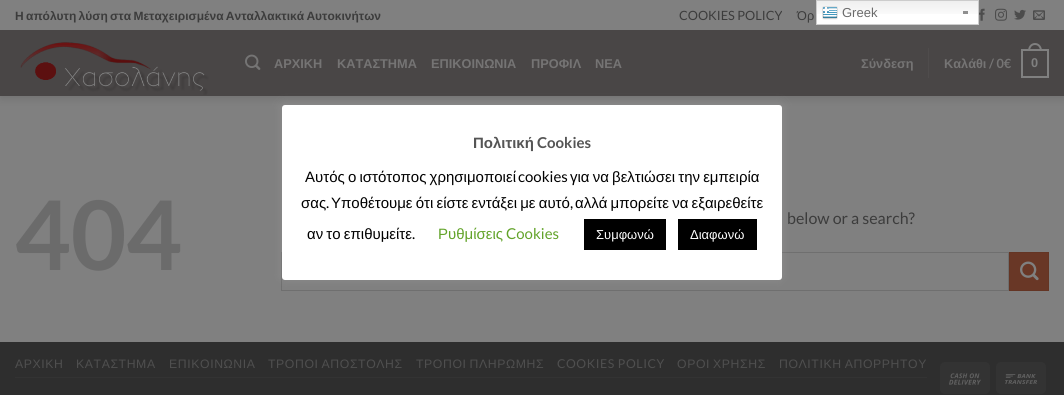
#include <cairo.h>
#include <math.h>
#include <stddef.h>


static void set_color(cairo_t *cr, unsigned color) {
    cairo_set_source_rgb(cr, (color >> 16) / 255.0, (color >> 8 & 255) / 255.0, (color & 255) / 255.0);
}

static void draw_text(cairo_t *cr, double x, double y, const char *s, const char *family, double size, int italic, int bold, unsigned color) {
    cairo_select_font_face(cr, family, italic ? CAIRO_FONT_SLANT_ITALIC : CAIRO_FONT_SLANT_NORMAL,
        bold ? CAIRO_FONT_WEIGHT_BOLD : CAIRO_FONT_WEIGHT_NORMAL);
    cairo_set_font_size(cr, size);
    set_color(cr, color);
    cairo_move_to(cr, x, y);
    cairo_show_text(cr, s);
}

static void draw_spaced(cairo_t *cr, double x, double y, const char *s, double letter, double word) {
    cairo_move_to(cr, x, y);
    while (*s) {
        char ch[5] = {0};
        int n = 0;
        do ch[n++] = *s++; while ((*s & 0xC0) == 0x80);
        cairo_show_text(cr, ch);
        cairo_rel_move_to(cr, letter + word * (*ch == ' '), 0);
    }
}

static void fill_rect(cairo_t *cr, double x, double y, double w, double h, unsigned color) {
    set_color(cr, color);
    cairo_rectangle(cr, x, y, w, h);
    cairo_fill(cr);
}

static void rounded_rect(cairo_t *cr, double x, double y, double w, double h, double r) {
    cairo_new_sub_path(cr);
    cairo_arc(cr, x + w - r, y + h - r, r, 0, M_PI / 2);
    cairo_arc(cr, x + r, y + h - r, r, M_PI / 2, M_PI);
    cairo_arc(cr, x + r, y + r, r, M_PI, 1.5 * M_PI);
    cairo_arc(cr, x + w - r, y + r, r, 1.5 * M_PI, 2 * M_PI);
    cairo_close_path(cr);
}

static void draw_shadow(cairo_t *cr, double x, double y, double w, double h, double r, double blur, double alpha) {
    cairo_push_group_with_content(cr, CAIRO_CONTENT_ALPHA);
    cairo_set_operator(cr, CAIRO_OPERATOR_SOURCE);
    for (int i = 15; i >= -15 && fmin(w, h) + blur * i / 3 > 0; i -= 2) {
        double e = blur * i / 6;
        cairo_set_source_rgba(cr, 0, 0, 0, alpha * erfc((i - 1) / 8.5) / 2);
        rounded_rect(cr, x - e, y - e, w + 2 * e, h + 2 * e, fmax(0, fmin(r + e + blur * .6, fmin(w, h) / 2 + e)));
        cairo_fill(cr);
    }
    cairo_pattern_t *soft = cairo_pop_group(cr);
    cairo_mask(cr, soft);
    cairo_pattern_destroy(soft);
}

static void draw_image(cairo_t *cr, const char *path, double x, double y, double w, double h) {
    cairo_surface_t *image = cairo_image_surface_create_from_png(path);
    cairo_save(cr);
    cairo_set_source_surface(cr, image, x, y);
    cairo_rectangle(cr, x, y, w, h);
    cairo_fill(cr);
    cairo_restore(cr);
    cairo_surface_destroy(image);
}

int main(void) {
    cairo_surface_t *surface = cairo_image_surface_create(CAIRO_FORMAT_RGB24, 1064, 395);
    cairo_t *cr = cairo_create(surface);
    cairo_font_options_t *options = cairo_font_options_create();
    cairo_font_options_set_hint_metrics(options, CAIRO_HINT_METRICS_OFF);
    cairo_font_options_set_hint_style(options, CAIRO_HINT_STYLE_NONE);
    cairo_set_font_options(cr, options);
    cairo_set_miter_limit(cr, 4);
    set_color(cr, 0x808080);
    cairo_paint(cr);
    set_color(cr, 0x000000);
    draw_shadow(cr, 1, 1, 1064, 96, 0, 5, 0.15);
    fill_rect(cr, 0, 0, 1064, 30, 0x808080);
    fill_rect(cr, 817, 14, 161, 10, 0xFFFFFF);
    draw_image(cr, "assets/img1.png", 817, 1, 161, 13);
    fill_rect(cr, 963, 11, 5, 3, 0x8F8F8F);
    cairo_rectangle(cr, 816.5, 0.5, 162, 24);
    set_color(cr, 0xCCCCCC);
    cairo_set_line_width(cr, 1);
    cairo_stroke(cr);
    draw_image(cr, "assets/img2.png", 822, 6, 16, 14);
    draw_text(cr, 842, 17, "Greek", "Liberation Sans", 13, 0, 0, 0x6B6B6B);
    cairo_select_font_face(cr, "Liberation Sans", CAIRO_FONT_SLANT_NORMAL, CAIRO_FONT_WEIGHT_BOLD);
    cairo_set_font_size(cr, 12);
    set_color(cr, 0x3C3C3C);
    draw_spaced(cr, 15, 20, "Η απόλυτη λύση στα Μεταχειρισμένα Ανταλλακτικά Αυτοκινήτων", 0, -1);
    draw_text(cr, 679, 20, "COOKIES POLICY", "Lato", 12.75, 0, 0, 0x3C3C3C);
    cairo_select_font_face(cr, "Liberation Sans", CAIRO_FONT_SLANT_NORMAL, CAIRO_FONT_WEIGHT_NORMAL);
    draw_spaced(cr, 797, 20, "Όρ", 0, -1);
    draw_image(cr, "assets/img3.png", 979, 8, 6, 13);
    draw_image(cr, "assets/img4.png", 995, 8, 12, 13);
    draw_image(cr, "assets/img5.png", 1014, 9, 12, 11);
    draw_image(cr, "assets/img6.png", 1033, 10, 12, 10);
    fill_rect(cr, 0, 30, 1064, 66, 0x494646);
    draw_image(cr, "assets/img7.png", 20, 42, 189, 53);
    draw_image(cr, "assets/img8.png", 245, 54, 16, 16);
    draw_text(cr, 274, 68, "ΑΡΧΙΚΗ", "Liberation Sans", 12.75, 0, 1, 0x757474);
    draw_text(cr, 337, 68, "ΚΑΤΑΣΤΗΜΑ", "Liberation Sans", 12.75, 0, 1, 0x757474);
    draw_text(cr, 431, 68, "ΕΠΙΚΟΙΝΩΝΙΑ", "Liberation Sans", 12.75, 0, 1, 0x757474);
    draw_text(cr, 531, 68, "ΠΡΟΦΙΛ", "Liberation Sans", 12.75, 0, 1, 0x757474);
    draw_text(cr, 595, 68, "ΝΕΑ", "Liberation Sans", 12.75, 0, 1, 0x757474);
    draw_text(cr, 861, 68, "Σύνδεση", "Liberation Sans", 12.75, 0, 1, 0x757474);
    fill_rect(cr, 928, 48, 1, 30, 0x4F4C4C);
    draw_text(cr, 944, 68, "Καλάθι", "Liberation Sans", 12.75, 0, 1, 0x757474);
    draw_text(cr, 989, 68, "/ 0€", "Lato", 12.75, 0, 1, 0x757474);
    cairo_rectangle(cr, 1022, 50, 26, 27);
    set_color(cr, 0x808080);
    cairo_set_line_width(cr, 2);
    cairo_stroke(cr);
    cairo_set_fill_rule(cr, CAIRO_FILL_RULE_EVEN_ODD);
    cairo_new_path(cr);
    cairo_move_to(cr, 1035, 43);
    cairo_curve_to(cr, 1039.5, 43, 1042, 47, 1042, 51);
    cairo_line_to(cr, 1028, 51);
    cairo_curve_to(cr, 1028, 47, 1030.5, 43, 1035, 43);
    cairo_close_path(cr);
    cairo_move_to(cr, 1035, 45);
    cairo_curve_to(cr, 1038.5, 45, 1040, 48, 1040, 51);
    cairo_line_to(cr, 1030, 51);
    cairo_curve_to(cr, 1030, 48, 1031.5, 45, 1035, 45);
    cairo_close_path(cr);
    cairo_fill(cr);
    draw_text(cr, 1031, 67, "0", "Liberation Sans", 12.75, 0, 1, 0x808080);
    draw_text(cr, 15, 270, "404", "Lato", 96, 0, 1, 0x6B6B6B);
    draw_text(cr, 787, 224, "below or a search?", "Lato", 16, 0, 0, 0x3C3C3C);
    cairo_rectangle(cr, 281.5, 252.5, 727, 38);
    set_color(cr, 0x6F6F6F);
    cairo_set_line_width(cr, 1);
    cairo_stroke(cr);
    set_color(cr, 0x693726);
    cairo_rectangle(cr, 1009.5, 252.5, 39, 38);
    cairo_fill_preserve(cr);
    set_color(cr, 0x643524);
    cairo_stroke(cr);
    draw_image(cr, "assets/img9.png", 1020, 261, 19, 20);
    fill_rect(cr, 0, 342, 1064, 53, 0x2E2E2E);
    fill_rect(cr, 15, 377, 912, 1, 0x333333);
    cairo_select_font_face(cr, "Liberation Sans", CAIRO_FONT_SLANT_NORMAL, CAIRO_FONT_WEIGHT_NORMAL);
    cairo_set_font_size(cr, 12.25);
    set_color(cr, 0x4F4F4F);
    draw_spaced(cr, 15, 368, "ΑΡΧΙΚΗ", 0.6, 0);
    draw_spaced(cr, 76, 368, "ΚΑΤΑΣΤΗΜΑ", 0.6, 0);
    draw_spaced(cr, 169, 368, "ΕΠΙΚΟΙΝΩΝΙΑ", 0.6, 0);
    draw_spaced(cr, 268, 368, "ΤΡΟΠΟΙ ΑΠΟΣΤΟΛΗΣ", 0.6, -1);
    draw_spaced(cr, 416, 368, "ΤΡΟΠΟΙ ΠΛΗΡΩΜΗΣ", 0.6, -1);
    cairo_select_font_face(cr, "Lato", CAIRO_FONT_SLANT_NORMAL, CAIRO_FONT_WEIGHT_NORMAL);
    draw_spaced(cr, 557, 368, "COOKIES POLICY", 0.6, 0);
    cairo_select_font_face(cr, "Liberation Sans", CAIRO_FONT_SLANT_NORMAL, CAIRO_FONT_WEIGHT_NORMAL);
    draw_spaced(cr, 677, 368, "ΟΡΟΙ ΧΡΗΣΗΣ", 0.6, -1);
    draw_spaced(cr, 779, 368, "ΠΟΛΙΤΙΚΗ ΑΠΟΡΡΗΤΟΥ", 0.6, -1);
    set_color(cr, 0x333333);
    rounded_rect(cr, 940, 362, 50, 32, 5);
    cairo_fill(cr);
    draw_image(cr, "assets/img10.png", 949, 373, 32, 12);
    rounded_rect(cr, 996, 362, 50, 32, 5);
    cairo_fill(cr);
    draw_image(cr, "assets/img11.png", 1005, 374, 32, 10);
    set_color(cr, 0xACABAB);
    draw_shadow(cr, 282, 104, 500, 175, 3, 5, 0.3);
    set_color(cr, 0xFFFFFF);
    rounded_rect(cr, 282, 105, 500, 175, 3);
    cairo_fill(cr);
    draw_text(cr, 473, 148, "Πολιτική", "Liberation Sans", 15, 0, 1, 0x555555);
    draw_text(cr, 537, 148, "Cookies", "Lato", 15, 0, 1, 0x555555);
    cairo_select_font_face(cr, "Liberation Sans", CAIRO_FONT_SLANT_NORMAL, CAIRO_FONT_WEIGHT_NORMAL);
    set_color(cr, 0x000000);
    draw_spaced(cr, 305, 182, "Αυτός ο ιστότοπος χρησιμοποιεί", 0, -1);
    draw_text(cr, 518, 182, "cookies", "Lato", 15, 0, 0, 0x000000);
    cairo_select_font_face(cr, "Liberation Sans", CAIRO_FONT_SLANT_NORMAL, CAIRO_FONT_WEIGHT_NORMAL);
    draw_spaced(cr, 570, 182, "για να βελτιώσει την εμπειρία", 0, -1);
    draw_text(cr, 301, 208, "σας", "Liberation Sans", 15, 0, 0, 0x000000);
    draw_text(cr, 326, 208, ".", "Lato", 15, 0, 0, 0x000000);
    cairo_select_font_face(cr, "Liberation Sans", CAIRO_FONT_SLANT_NORMAL, CAIRO_FONT_WEIGHT_NORMAL);
    draw_spaced(cr, 331, 208, "Υποθέτουμε ότι είστε εντάξει με αυτό", 0, -1);
    draw_text(cr, 570, 208, ",", "Lato", 15, 0, 0, 0x000000);
    cairo_select_font_face(cr, "Liberation Sans", CAIRO_FONT_SLANT_NORMAL, CAIRO_FONT_WEIGHT_NORMAL);
    draw_spaced(cr, 575, 208, "αλλά μπορείτε να εξαιρεθείτε", 0, -1);
    draw_spaced(cr, 307, 239, "αν το επιθυμείτε", 0, -1);
    draw_text(cr, 412, 239, ".", "Lato", 15, 0, 0, 0x000000);
    draw_text(cr, 438, 239, "Ρυθμίσεις", "Liberation Sans", 15, 0, 0, 0x62A329);
    draw_text(cr, 506, 239, "Cookies", "Lato", 15, 0, 0, 0x62A329);
    fill_rect(cr, 584, 219, 82, 31, 0x000000);
    draw_text(cr, 596, 239, "Συμφωνώ", "Liberation Sans", 13, 0, 0, 0xFFFFFF);
    fill_rect(cr, 678, 219, 79, 31, 0x000000);
    draw_text(cr, 690, 239, "Διαφωνώ", "Liberation Sans", 13, 0, 0, 0xFFFFFF);
    cairo_surface_write_to_png(surface, "output.png");
    cairo_font_options_destroy(options);
    cairo_destroy(cr);
    cairo_surface_destroy(surface);
    return 0;
}
